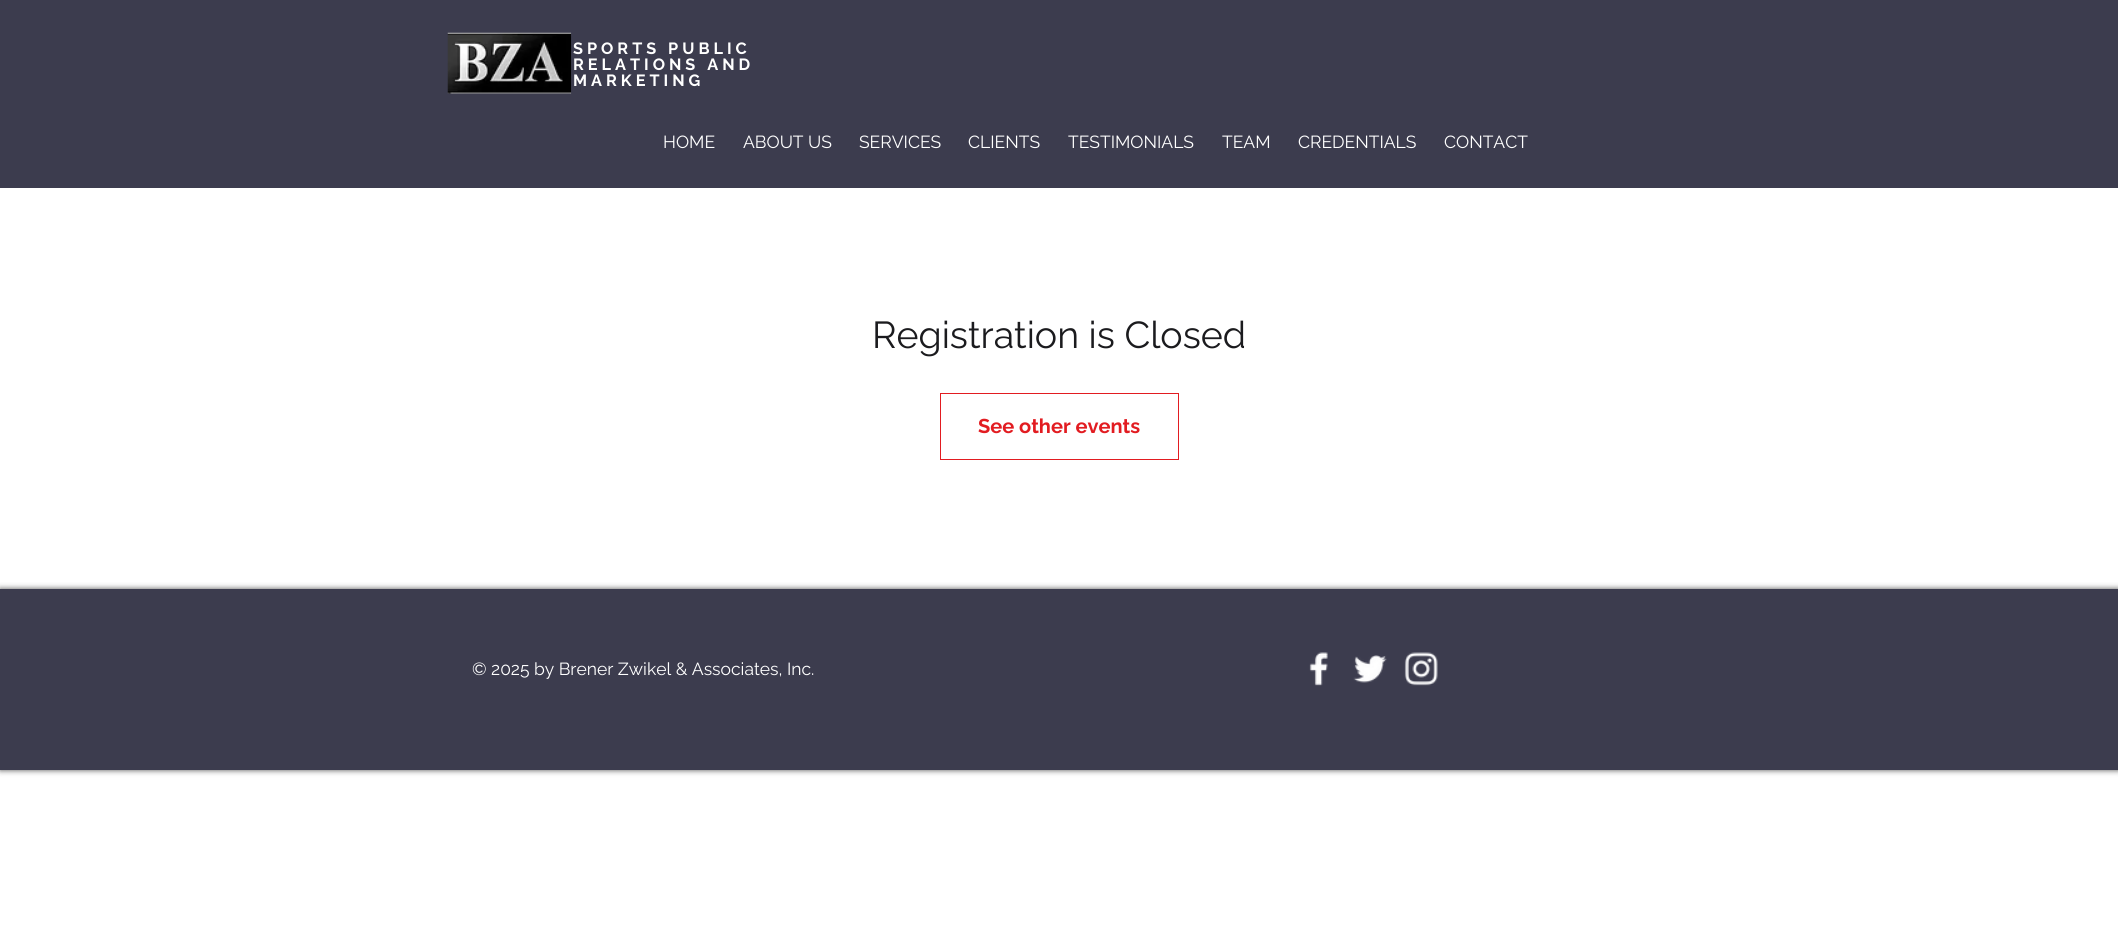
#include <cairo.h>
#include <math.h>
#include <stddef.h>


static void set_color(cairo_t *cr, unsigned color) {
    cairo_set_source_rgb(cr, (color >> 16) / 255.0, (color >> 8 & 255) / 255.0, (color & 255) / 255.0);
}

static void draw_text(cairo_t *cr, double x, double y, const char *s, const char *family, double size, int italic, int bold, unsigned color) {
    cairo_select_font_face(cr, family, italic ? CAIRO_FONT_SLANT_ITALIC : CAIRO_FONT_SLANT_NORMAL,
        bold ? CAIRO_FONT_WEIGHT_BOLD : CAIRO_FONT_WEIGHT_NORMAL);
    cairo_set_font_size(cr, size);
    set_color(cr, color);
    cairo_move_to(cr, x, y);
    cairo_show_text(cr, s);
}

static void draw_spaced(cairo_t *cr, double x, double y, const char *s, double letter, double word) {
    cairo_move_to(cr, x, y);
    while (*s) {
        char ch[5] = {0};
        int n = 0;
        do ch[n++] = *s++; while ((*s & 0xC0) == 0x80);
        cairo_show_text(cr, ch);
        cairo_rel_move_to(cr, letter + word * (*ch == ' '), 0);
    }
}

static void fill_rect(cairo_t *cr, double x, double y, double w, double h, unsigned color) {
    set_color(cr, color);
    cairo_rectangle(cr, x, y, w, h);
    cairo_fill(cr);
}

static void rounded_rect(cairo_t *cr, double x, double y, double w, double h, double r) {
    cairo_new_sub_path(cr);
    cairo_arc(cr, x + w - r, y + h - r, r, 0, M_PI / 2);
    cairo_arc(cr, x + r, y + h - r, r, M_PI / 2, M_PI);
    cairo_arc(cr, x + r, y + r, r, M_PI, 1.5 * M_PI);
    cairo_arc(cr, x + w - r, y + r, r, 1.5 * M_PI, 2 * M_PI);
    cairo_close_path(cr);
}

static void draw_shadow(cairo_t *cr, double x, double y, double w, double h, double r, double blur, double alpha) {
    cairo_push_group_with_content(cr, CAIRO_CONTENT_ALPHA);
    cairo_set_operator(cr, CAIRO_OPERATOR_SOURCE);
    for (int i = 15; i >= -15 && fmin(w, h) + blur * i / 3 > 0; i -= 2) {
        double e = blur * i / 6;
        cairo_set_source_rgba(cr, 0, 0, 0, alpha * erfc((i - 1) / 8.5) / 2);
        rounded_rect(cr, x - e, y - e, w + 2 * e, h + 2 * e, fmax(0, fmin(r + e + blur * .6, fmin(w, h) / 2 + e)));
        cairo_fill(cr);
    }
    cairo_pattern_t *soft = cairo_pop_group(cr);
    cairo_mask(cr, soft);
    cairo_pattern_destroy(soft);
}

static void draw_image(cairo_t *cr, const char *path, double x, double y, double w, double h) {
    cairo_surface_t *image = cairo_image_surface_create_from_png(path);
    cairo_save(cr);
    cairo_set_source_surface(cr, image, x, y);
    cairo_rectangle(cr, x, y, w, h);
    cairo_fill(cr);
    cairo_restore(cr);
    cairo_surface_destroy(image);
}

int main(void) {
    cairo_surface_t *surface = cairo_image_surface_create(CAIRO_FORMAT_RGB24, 2118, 929);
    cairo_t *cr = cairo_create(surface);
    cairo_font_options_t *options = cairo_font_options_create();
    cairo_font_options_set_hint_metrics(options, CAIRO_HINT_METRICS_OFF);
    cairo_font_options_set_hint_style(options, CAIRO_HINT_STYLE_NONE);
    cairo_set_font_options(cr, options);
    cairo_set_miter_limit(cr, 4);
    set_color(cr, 0xFFFFFF);
    cairo_paint(cr);
    fill_rect(cr, 0, 0, 2118, 188, 0x3C3C4E);
    draw_image(cr, "assets/img1.png", 447, 32, 125, 62);
    cairo_select_font_face(cr, "Raleway", CAIRO_FONT_SLANT_NORMAL, CAIRO_FONT_WEIGHT_BOLD);
    cairo_set_font_size(cr, 16.25);
    set_color(cr, 0xFFFFFF);
    draw_spaced(cr, 573, 54, "SPORTS PUBLIC", 4, 0);
    draw_spaced(cr, 573, 70, "RELATIONS AND", 4, 0);
    draw_spaced(cr, 573, 86, "MARKETING", 4, 0);
    draw_text(cr, 663, 148, "HOME", "Raleway", 17.5, 0, 0, 0xFFFFFF);
    draw_text(cr, 743, 148, "ABOUT US", "Raleway", 17.5, 0, 0, 0xFFFFFF);
    draw_text(cr, 859, 148, "SERVICES", "Raleway", 17.5, 0, 0, 0xFFFFFF);
    draw_text(cr, 968, 148, "CLIENTS", "Raleway", 17.5, 0, 0, 0xFFFFFF);
    draw_text(cr, 1068, 148, "TESTIMONIALS", "Raleway", 17.5, 0, 0, 0xFFFFFF);
    draw_text(cr, 1222, 148, "TEAM", "Raleway", 17.5, 0, 0, 0xFFFFFF);
    draw_text(cr, 1298, 148, "CREDENTIALS", "Raleway", 17.5, 0, 0, 0xFFFFFF);
    draw_text(cr, 1444, 148, "CONTACT", "Raleway", 17.5, 0, 0, 0xFFFFFF);
    draw_text(cr, 872, 348, "Registration is Closed", "Raleway", 37.5, 0, 0, 0x1B1B1E);
    cairo_rectangle(cr, 940.5, 393.5, 238, 66);
    set_color(cr, 0xE21C21);
    cairo_set_line_width(cr, 1);
    cairo_stroke(cr);
    draw_text(cr, 978, 433, "See other events", "Raleway", 20, 0, 1, 0xE21C21);
    set_color(cr, 0x000000);
    draw_shadow(cr, 0, 589, 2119, 181, 0, 3, 0.7);
    fill_rect(cr, 0, 589, 2118, 181, 0x3C3C4E);
    draw_text(cr, 472, 675, "© 2025 by Brener Zwikel & Associates, Inc.", "Raleway", 17.5, 0, 0, 0xFFFFFF);
    draw_image(cr, "assets/img2.png", 1309, 652, 19, 34);
    draw_image(cr, "assets/img3.png", 1353, 655, 34, 28);
    draw_image(cr, "assets/img4.png", 1404, 652, 34, 34);
    cairo_surface_write_to_png(surface, "output.png");
    cairo_font_options_destroy(options);
    cairo_destroy(cr);
    cairo_surface_destroy(surface);
    return 0;
}
